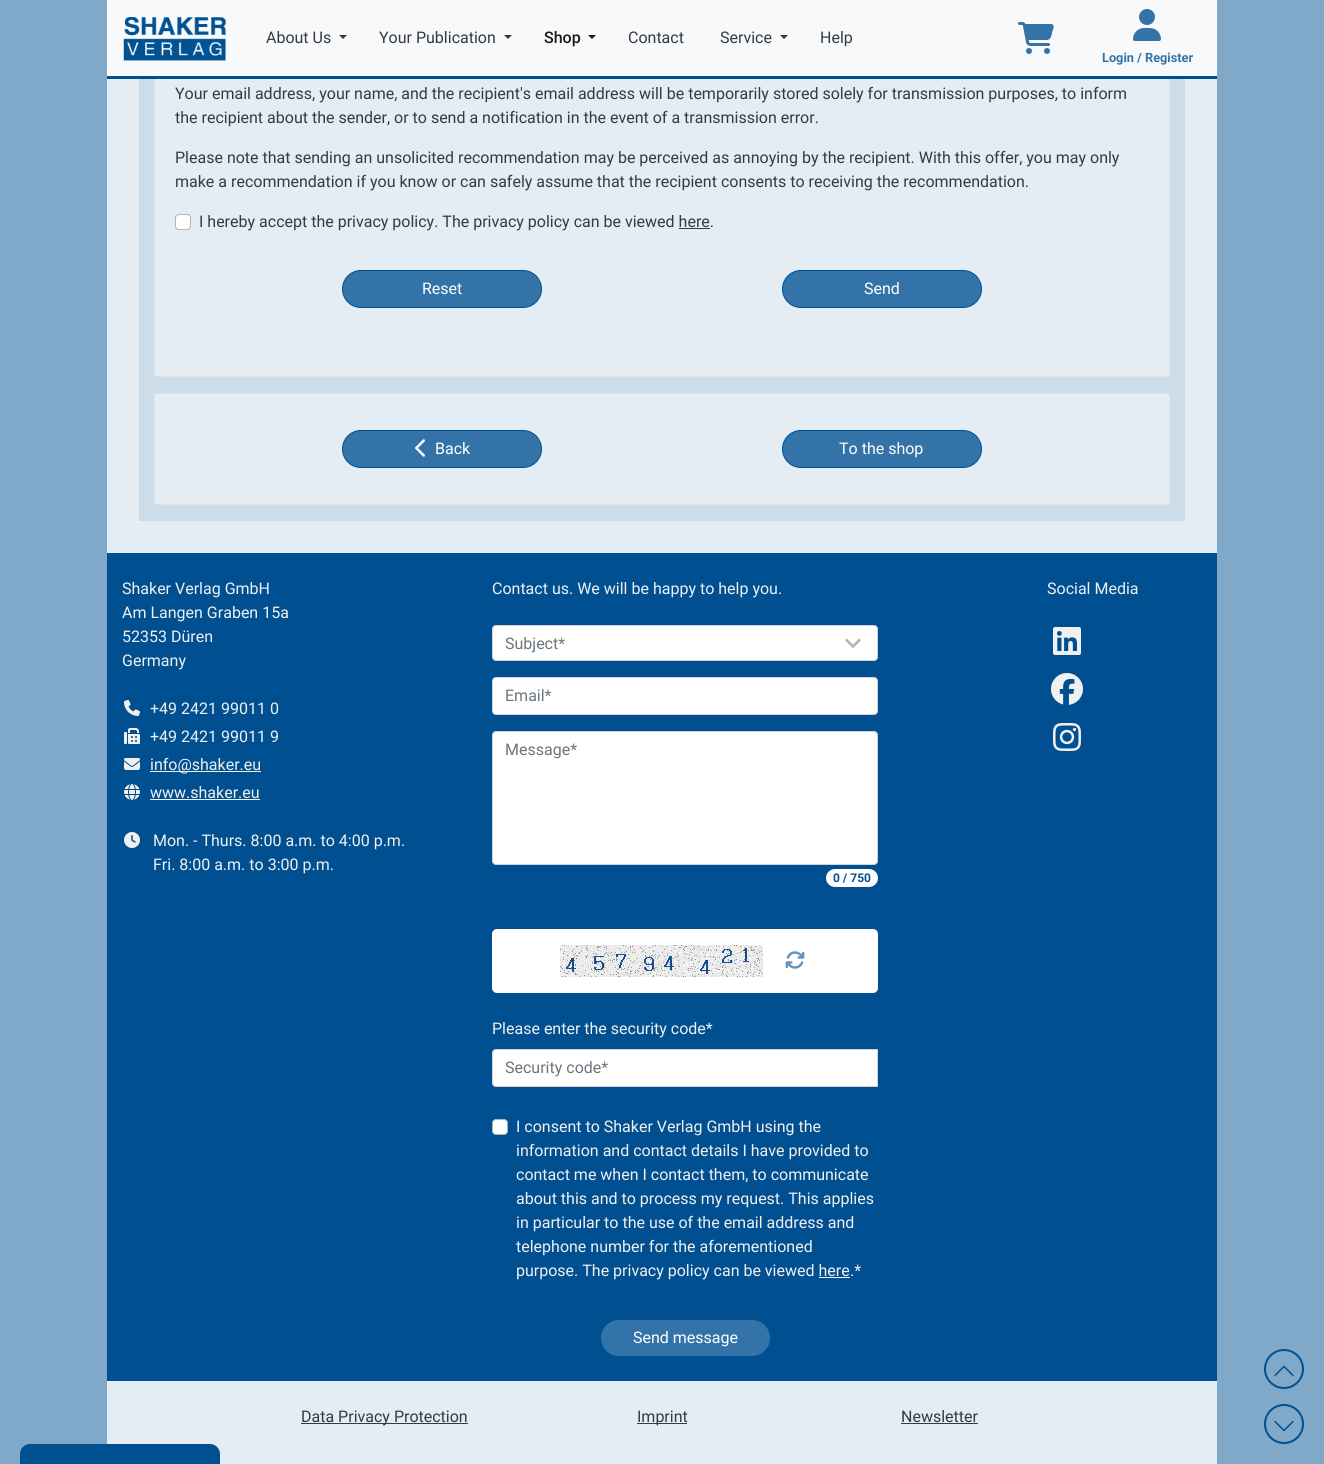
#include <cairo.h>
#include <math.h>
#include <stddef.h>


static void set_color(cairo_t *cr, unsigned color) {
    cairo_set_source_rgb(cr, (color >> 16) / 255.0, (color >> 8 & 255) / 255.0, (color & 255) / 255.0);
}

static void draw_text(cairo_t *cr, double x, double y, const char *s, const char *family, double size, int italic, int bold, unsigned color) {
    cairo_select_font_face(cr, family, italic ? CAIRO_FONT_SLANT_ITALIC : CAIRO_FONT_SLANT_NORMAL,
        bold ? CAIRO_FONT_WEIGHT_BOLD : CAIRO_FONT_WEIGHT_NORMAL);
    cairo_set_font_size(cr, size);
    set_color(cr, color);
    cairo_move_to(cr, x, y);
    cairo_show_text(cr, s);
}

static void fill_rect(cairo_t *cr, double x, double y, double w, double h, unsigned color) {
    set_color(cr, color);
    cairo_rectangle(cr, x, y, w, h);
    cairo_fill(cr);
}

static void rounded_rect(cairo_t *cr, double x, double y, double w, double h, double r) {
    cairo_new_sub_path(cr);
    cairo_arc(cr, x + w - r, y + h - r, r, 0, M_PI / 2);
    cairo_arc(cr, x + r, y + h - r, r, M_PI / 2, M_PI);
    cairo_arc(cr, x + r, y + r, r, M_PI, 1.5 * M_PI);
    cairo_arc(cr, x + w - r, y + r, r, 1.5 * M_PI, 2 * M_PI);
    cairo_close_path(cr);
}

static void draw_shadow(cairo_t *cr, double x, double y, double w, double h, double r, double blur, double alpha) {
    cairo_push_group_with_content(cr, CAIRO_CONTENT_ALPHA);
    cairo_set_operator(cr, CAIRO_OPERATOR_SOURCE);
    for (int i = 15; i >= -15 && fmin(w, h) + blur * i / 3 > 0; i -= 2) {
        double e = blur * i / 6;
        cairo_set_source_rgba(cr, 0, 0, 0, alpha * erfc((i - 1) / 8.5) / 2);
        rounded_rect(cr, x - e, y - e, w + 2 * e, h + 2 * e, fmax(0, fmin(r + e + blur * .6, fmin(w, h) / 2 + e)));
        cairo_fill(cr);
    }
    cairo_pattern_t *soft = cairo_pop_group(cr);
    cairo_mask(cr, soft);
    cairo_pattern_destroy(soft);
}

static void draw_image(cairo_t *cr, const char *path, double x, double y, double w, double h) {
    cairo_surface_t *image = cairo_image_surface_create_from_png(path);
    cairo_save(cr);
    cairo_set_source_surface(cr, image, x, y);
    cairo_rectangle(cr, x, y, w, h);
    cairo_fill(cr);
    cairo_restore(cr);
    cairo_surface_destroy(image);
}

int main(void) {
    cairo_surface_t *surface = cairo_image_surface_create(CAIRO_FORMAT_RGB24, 1324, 1464);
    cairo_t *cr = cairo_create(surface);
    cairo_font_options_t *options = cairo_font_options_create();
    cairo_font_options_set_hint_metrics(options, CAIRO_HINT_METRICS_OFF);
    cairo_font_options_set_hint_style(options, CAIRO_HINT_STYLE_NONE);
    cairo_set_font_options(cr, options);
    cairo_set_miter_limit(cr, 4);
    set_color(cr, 0x80A8C8);
    cairo_paint(cr);
    fill_rect(cr, 107, 79, 1110, 474, 0xE5EDF4);
    fill_rect(cr, 139, 79, 1046, 442, 0xCCDCE9);
    set_color(cr, 0xFFFFFF);
    rounded_rect(cr, 154, -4, 1016, 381, 4);
    cairo_fill(cr);
    rounded_rect(cr, 154.5, -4.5, 1015, 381, 3.5);
    cairo_set_source_rgba(cr, 0, 0, 0, 0.12);
    cairo_set_line_width(cr, 1);
    cairo_stroke(cr);
    fill_rect(cr, 107, 0, 1110, 76, 0xF8F9FA);
    fill_rect(cr, 107, 76, 1110, 3, 0x005091);
    draw_image(cr, "assets/img1.png", 123, 17, 103, 44);
    draw_text(cr, 266, 43, "About Us", "Roboto", 16, 0, 0, 0x343A40);
    cairo_new_path(cr);
    cairo_move_to(cr, 339, 35);
    cairo_line_to(cr, 347, 35);
    cairo_line_to(cr, 343, 39);
    cairo_close_path(cr);
    cairo_fill(cr);
    draw_text(cr, 379, 43, "Your Publication", "Roboto", 16, 0, 0, 0x343A40);
    cairo_new_path(cr);
    cairo_move_to(cr, 504, 35);
    cairo_line_to(cr, 512, 35);
    cairo_line_to(cr, 508, 39);
    cairo_close_path(cr);
    cairo_fill(cr);
    draw_text(cr, 544, 43, "Shop", "Roboto Medium", 16, 0, 0, 0x191919);
    cairo_new_path(cr);
    cairo_move_to(cr, 588, 35);
    cairo_line_to(cr, 596, 35);
    cairo_line_to(cr, 592, 39);
    cairo_close_path(cr);
    cairo_fill(cr);
    draw_text(cr, 628, 43, "Contact", "Roboto", 16, 0, 0, 0x343A40);
    draw_text(cr, 720, 43, "Service", "Roboto", 16, 0, 0, 0x343A40);
    cairo_new_path(cr);
    cairo_move_to(cr, 780, 35);
    cairo_line_to(cr, 788, 35);
    cairo_line_to(cr, 784, 39);
    cairo_close_path(cr);
    cairo_fill(cr);
    draw_text(cr, 820, 43, "Help", "Roboto", 16, 0, 0, 0x343A40);
    draw_image(cr, "assets/img2.png", 1018, 22, 36, 32);
    draw_image(cr, "assets/img3.png", 1133, 9, 28, 32);
    draw_text(cr, 1102, 62, "Login / Register", "Roboto", 12.75, 0, 1, 0x3373A7);
    fill_rect(cr, 155, 79, 1014, 297, 0xE5EDF4);
    draw_text(cr, 175, 99, "Your email address, your name, and the recipient's email address will be temporarily stored solely for transmission purposes, to inform", "Roboto", 16, 0, 0, 0x343A40);
    draw_text(cr, 175, 123, "the recipient about the sender, or to send a notification in the event of a transmission error.", "Roboto", 16, 0, 0, 0x343A40);
    draw_text(cr, 175, 163, "Please note that sending an unsolicited recommendation may be perceived as annoying by the recipient. With this offer, you may only", "Roboto", 16, 0, 0, 0x343A40);
    draw_text(cr, 175, 187, "make a recommendation if you know or can safely assume that the recipient consents to receiving the recommendation.", "Roboto", 16, 0, 0, 0x343A40);
    set_color(cr, 0xFFFFFF);
    rounded_rect(cr, 175.5, 214.5, 15, 15, 3.5);
    cairo_fill_preserve(cr);
    set_color(cr, 0xADB5BD);
    cairo_stroke(cr);
    draw_text(cr, 199, 227, "I hereby accept the privacy policy. The privacy policy can be viewed here.", "Roboto", 16, 0, 0, 0x343A40);
    fill_rect(cr, 679, 228, 31, 1, 0x343A40);
    set_color(cr, 0x3373A7);
    rounded_rect(cr, 342.5, 270.5, 199, 37, 18.5);
    cairo_fill_preserve(cr);
    set_color(cr, 0x005091);
    cairo_stroke(cr);
    draw_text(cr, 422, 294, "Reset", "Roboto", 16, 0, 0, 0xFFFFFF);
    set_color(cr, 0x3373A7);
    rounded_rect(cr, 782.5, 270.5, 199, 37, 18.5);
    cairo_fill_preserve(cr);
    set_color(cr, 0x005091);
    cairo_stroke(cr);
    draw_text(cr, 864, 294, "Send", "Roboto", 16, 0, 0, 0xFFFFFF);
    rounded_rect(cr, 154, 393, 1016, 112, 4);
    cairo_fill(cr);
    rounded_rect(cr, 154.5, 393.5, 1015, 111, 3.5);
    cairo_set_source_rgba(cr, 0, 0, 0, 0.12);
    cairo_stroke(cr);
    fill_rect(cr, 155, 394, 1014, 110, 0xE5EDF4);
    set_color(cr, 0x3373A7);
    rounded_rect(cr, 342.5, 430.5, 199, 37, 18.5);
    cairo_fill_preserve(cr);
    set_color(cr, 0x005091);
    cairo_stroke(cr);
    draw_image(cr, "assets/img4.png", 415, 439, 10, 18);
    draw_text(cr, 435, 454, "Back", "Roboto", 16, 0, 0, 0xFFFFFF);
    set_color(cr, 0x3373A7);
    rounded_rect(cr, 782.5, 430.5, 199, 37, 18.5);
    cairo_fill_preserve(cr);
    set_color(cr, 0x005091);
    cairo_stroke(cr);
    draw_text(cr, 839, 454, "To the shop", "Roboto", 16, 0, 0, 0xFFFFFF);
    fill_rect(cr, 107, 553, 1110, 828, 0x005091);
    draw_text(cr, 122, 594, "Shaker Verlag GmbH", "Roboto", 16, 0, 0, 0xF0F0F0);
    draw_text(cr, 122, 618, "Am Langen Graben 15a", "Roboto", 16, 0, 0, 0xF0F0F0);
    draw_text(cr, 122, 642, "52353 Düren", "Roboto", 16, 0, 0, 0xF0F0F0);
    draw_text(cr, 122, 666, "Germany", "Roboto", 16, 0, 0, 0xF0F0F0);
    draw_image(cr, "assets/img5.png", 124, 700, 16, 16);
    draw_text(cr, 150, 714, "+49 2421 99011 0", "Roboto", 16, 0, 0, 0xF0F0F0);
    draw_image(cr, "assets/img6.png", 124, 728, 16, 16);
    draw_text(cr, 150, 742, "+49 2421 99011 9", "Roboto", 16, 0, 0, 0xF0F0F0);
    draw_image(cr, "assets/img7.png", 124, 758, 16, 12);
    fill_rect(cr, 150, 771, 111, 1, 0xF0F0F0);
    draw_text(cr, 150, 770, "info@shaker.eu", "Roboto", 16, 0, 0, 0xF0F0F0);
    draw_image(cr, "assets/img8.png", 124, 784, 16, 16);
    draw_text(cr, 150, 798, "www.shaker.eu", "Roboto", 16, 0, 0, 0xF0F0F0);
    fill_rect(cr, 150, 799, 110, 1, 0xF0F0F0);
    draw_image(cr, "assets/img9.png", 124, 832, 16, 16);
    draw_text(cr, 153, 846, "Mon. - Thurs. 8:00 a.m. to 4:00 p.m.", "Roboto", 16, 0, 0, 0xF0F0F0);
    draw_text(cr, 153, 870, "Fri. 8:00 a.m. to 3:00 p.m.", "Roboto", 16, 0, 0, 0xF0F0F0);
    draw_text(cr, 492, 594, "Contact us. We will be happy to help you.", "Roboto", 16, 0, 0, 0xF0F0F0);
    set_color(cr, 0xFFFFFF);
    rounded_rect(cr, 492.5, 625.5, 385, 35, 3.5);
    cairo_fill_preserve(cr);
    set_color(cr, 0xCED4DA);
    cairo_stroke(cr);
    draw_text(cr, 505, 649, "Subject*", "Roboto", 16, 0, 0, 0x6C757D);
    set_color(cr, 0xFFFFFF);
    cairo_new_path(cr);
    cairo_move_to(cr, 845, 626);
    cairo_line_to(cr, 874, 626);
    cairo_curve_to(cr, 875.5, 626, 877, 627.5, 877, 629);
    cairo_line_to(cr, 877, 657);
    cairo_curve_to(cr, 877, 658.5, 875.5, 660, 874, 660);
    cairo_line_to(cr, 845, 660);
    cairo_close_path(cr);
    cairo_fill(cr);
    cairo_save(cr);
    rounded_rect(cr, 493, 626, 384, 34, 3);
    cairo_clip(cr);
    cairo_set_fill_rule(cr, CAIRO_FILL_RULE_EVEN_ODD);
    cairo_new_path(cr);
    cairo_move_to(cr, 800, 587);
    cairo_line_to(cr, 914, 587);
    cairo_line_to(cr, 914, 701);
    cairo_line_to(cr, 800, 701);
    cairo_close_path(cr);
    cairo_move_to(cr, 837, 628);
    cairo_line_to(cr, 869, 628);
    cairo_line_to(cr, 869, 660);
    cairo_line_to(cr, 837, 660);
    cairo_close_path(cr);
    cairo_clip(cr);
    set_color(cr, 0xFFFFFF);
    draw_shadow(cr, 825, 612, 64, 64, 0, 8, 1);
    cairo_restore(cr);
    draw_image(cr, "assets/img10.png", 845, 638, 16, 11);
    rounded_rect(cr, 492.5, 677.5, 385, 37, 3.5);
    cairo_fill_preserve(cr);
    set_color(cr, 0xCED4DA);
    cairo_stroke(cr);
    draw_text(cr, 505, 701, "Email*", "Roboto", 16, 0, 0, 0x6C757D);
    set_color(cr, 0xFFFFFF);
    rounded_rect(cr, 492.5, 731.5, 385, 133, 3.5);
    cairo_fill_preserve(cr);
    set_color(cr, 0xCED4DA);
    cairo_stroke(cr);
    draw_text(cr, 505, 755, "Message*", "Roboto", 16, 0, 0, 0x6C757D);
    set_color(cr, 0xFFFFFF);
    rounded_rect(cr, 826, 869, 52, 18, 9);
    cairo_fill(cr);
    draw_text(cr, 833, 882, "0 / 750", "Roboto", 12, 0, 1, 0x005091);
    set_color(cr, 0xFFFFFF);
    rounded_rect(cr, 492, 929, 386, 64, 5);
    cairo_fill(cr);
    draw_image(cr, "assets/img11.png", 560, 945, 203, 32);
    draw_image(cr, "assets/img12.png", 785, 951, 20, 18);
    draw_text(cr, 492, 1034, "Please enter the security code*", "Roboto", 16, 0, 0, 0xF0F0F0);
    set_color(cr, 0xFFFFFF);
    cairo_new_path(cr);
    cairo_move_to(cr, 496, 1049.5);
    cairo_line_to(cr, 877.5, 1049.5);
    cairo_line_to(cr, 877.5, 1086.5);
    cairo_line_to(cr, 496, 1086.5);
    cairo_curve_to(cr, 494, 1086.5, 492.5, 1085, 492.5, 1083);
    cairo_line_to(cr, 492.5, 1053);
    cairo_curve_to(cr, 492.5, 1051, 494, 1049.5, 496, 1049.5);
    cairo_close_path(cr);
    cairo_fill_preserve(cr);
    set_color(cr, 0xCED4DA);
    cairo_stroke(cr);
    draw_text(cr, 505, 1073, "Security code*", "Roboto", 16, 0, 0, 0x6C757D);
    set_color(cr, 0xFFFFFF);
    rounded_rect(cr, 492.5, 1119.5, 15, 15, 3.5);
    cairo_fill_preserve(cr);
    set_color(cr, 0xADB5BD);
    cairo_stroke(cr);
    draw_text(cr, 516, 1132, "I consent to Shaker Verlag GmbH using the", "Roboto", 16, 0, 0, 0xF0F0F0);
    draw_text(cr, 516, 1156, "information and contact details I have provided to", "Roboto", 16, 0, 0, 0xF0F0F0);
    draw_text(cr, 516, 1180, "contact me when I contact them, to communicate", "Roboto", 16, 0, 0, 0xF0F0F0);
    draw_text(cr, 516, 1204, "about this and to process my request. This applies", "Roboto", 16, 0, 0, 0xF0F0F0);
    draw_text(cr, 516, 1228, "in particular to the use of the email address and", "Roboto", 16, 0, 0, 0xF0F0F0);
    draw_text(cr, 516, 1252, "telephone number for the aforementioned", "Roboto", 16, 0, 0, 0xF0F0F0);
    draw_text(cr, 516, 1276, "purpose. The privacy policy can be viewed here", "Roboto", 16, 0, 0, 0xF0F0F0);
    draw_text(cr, 850, 1276, ".*", "Roboto", 16, 0, 0, 0xF0F0F0);
    fill_rect(cr, 819, 1277, 31, 1, 0xF0F0F0);
    set_color(cr, 0x3373A7);
    rounded_rect(cr, 600.5, 1319.5, 170, 37, 18.5);
    cairo_fill_preserve(cr);
    set_color(cr, 0x005091);
    cairo_stroke(cr);
    draw_text(cr, 633, 1343, "Send message", "Roboto", 16, 0, 0, 0xFFFFFF);
    draw_text(cr, 1047, 594, "Social Media", "Roboto", 16, 0, 0, 0xF0F0F0);
    draw_image(cr, "assets/img13.png", 1053, 627, 28, 28);
    draw_image(cr, "assets/img14.png", 1051, 673, 32, 32);
    draw_image(cr, "assets/img15.png", 1053, 723, 28, 28);
    fill_rect(cr, 107, 1381, 1110, 72, 0xE5EDF4);
    fill_rect(cr, 301, 1423, 167, 1, 0x343A40);
    draw_text(cr, 301, 1422, "Data Privacy Protection", "Roboto", 16, 0, 0, 0x343A40);
    fill_rect(cr, 637, 1423, 50, 1, 0x343A40);
    draw_text(cr, 637, 1422, "Imprint", "Roboto", 16, 0, 0, 0x343A40);
    draw_text(cr, 901, 1422, "Newsletter", "Roboto", 16, 0, 0, 0x343A40);
    fill_rect(cr, 901, 1423, 77, 1, 0x343A40);
    fill_rect(cr, 219, 1453, 998, 11, 0xE5EDF4);
    cairo_new_path(cr);
    cairo_arc(cr, 1284, 1369, 19, 0, 2 * M_PI);
    set_color(cr, 0x005091);
    cairo_set_line_width(cr, 2);
    cairo_stroke(cr);
    draw_image(cr, "assets/img16.png", 1274, 1365, 20, 12);
    cairo_arc(cr, 1284, 1424, 19, 0, 2 * M_PI);
    cairo_stroke(cr);
    draw_image(cr, "assets/img17.png", 1274, 1420, 20, 12);
    cairo_new_path(cr);
    cairo_move_to(cr, 30, 1444);
    cairo_line_to(cr, 210, 1444);
    cairo_curve_to(cr, 215.5, 1444, 220, 1448.5, 220, 1454);
    cairo_line_to(cr, 220, 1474);
    cairo_line_to(cr, 20, 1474);
    cairo_line_to(cr, 20, 1454);
    cairo_curve_to(cr, 20, 1448.5, 24.5, 1444, 30, 1444);
    cairo_close_path(cr);
    cairo_fill(cr);
    cairo_surface_write_to_png(surface, "output.png");
    cairo_font_options_destroy(options);
    cairo_destroy(cr);
    cairo_surface_destroy(surface);
    return 0;
}
